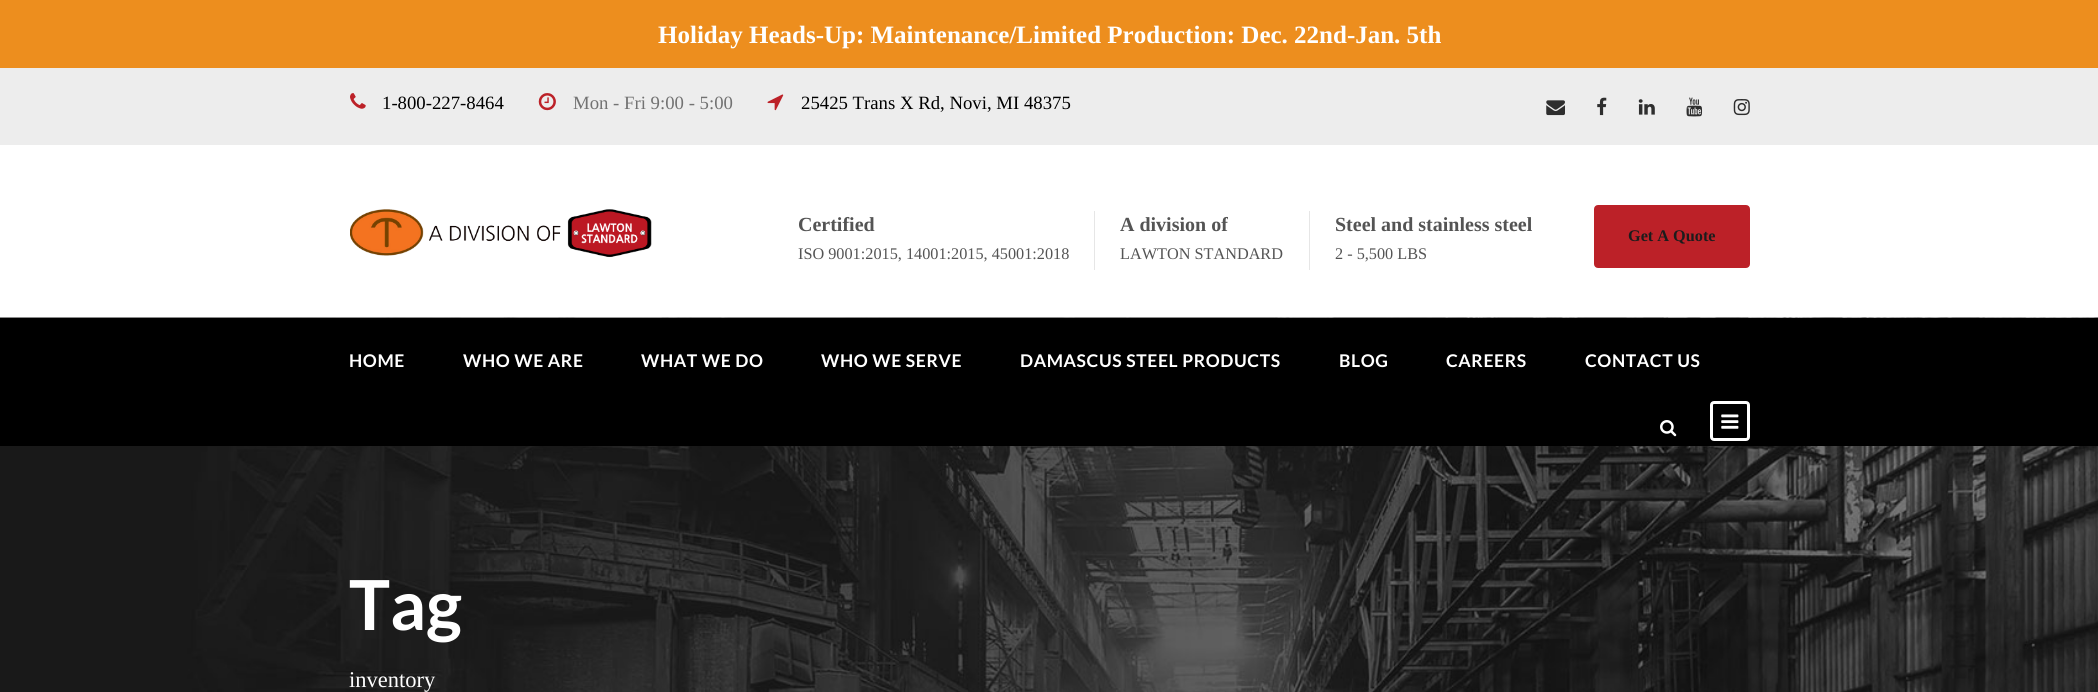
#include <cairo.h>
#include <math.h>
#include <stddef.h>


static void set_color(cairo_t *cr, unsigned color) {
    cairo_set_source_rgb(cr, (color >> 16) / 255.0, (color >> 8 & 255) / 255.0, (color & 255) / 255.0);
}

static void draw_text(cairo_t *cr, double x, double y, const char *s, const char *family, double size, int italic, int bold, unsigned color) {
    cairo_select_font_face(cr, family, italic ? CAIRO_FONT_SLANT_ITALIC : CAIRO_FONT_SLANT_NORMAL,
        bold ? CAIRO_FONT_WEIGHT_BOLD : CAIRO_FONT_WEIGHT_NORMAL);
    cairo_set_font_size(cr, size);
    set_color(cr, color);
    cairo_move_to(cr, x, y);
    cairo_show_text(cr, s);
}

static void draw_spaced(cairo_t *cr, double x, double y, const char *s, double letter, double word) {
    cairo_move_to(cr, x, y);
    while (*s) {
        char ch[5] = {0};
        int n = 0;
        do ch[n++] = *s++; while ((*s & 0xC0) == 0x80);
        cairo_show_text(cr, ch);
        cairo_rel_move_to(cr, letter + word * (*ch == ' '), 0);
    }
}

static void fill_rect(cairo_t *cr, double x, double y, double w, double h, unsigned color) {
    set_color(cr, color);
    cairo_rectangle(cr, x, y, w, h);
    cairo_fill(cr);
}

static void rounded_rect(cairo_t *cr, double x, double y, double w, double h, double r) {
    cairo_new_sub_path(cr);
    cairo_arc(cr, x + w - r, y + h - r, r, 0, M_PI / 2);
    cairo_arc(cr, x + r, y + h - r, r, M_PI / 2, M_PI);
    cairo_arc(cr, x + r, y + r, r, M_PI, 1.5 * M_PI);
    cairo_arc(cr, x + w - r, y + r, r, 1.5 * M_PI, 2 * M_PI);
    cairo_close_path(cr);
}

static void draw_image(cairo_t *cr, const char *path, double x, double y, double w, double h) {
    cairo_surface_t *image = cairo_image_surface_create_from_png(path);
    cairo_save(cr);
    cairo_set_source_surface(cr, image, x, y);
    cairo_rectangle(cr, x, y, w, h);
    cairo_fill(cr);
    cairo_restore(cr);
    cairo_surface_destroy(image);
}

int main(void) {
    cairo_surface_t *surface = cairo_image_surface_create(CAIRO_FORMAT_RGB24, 2098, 692);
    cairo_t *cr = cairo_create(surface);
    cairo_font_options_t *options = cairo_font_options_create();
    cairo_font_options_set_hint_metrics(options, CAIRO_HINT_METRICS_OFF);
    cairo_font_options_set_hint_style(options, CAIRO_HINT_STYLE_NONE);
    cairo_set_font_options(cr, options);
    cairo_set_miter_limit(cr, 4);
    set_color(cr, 0xFFFFFF);
    cairo_paint(cr);
    fill_rect(cr, 0, 0, 2098, 68, 0xED8E1E);
    draw_text(cr, 658, 43, "Holiday Heads-Up: Maintenance/Limited Production: Dec. 22nd-Jan. 5th", "Liberation Serif", 25, 0, 1, 0xFFFFFF);
    fill_rect(cr, 0, 68, 2098, 77, 0xEDEDED);
    draw_image(cr, "assets/img1.png", 350, 93, 16, 16);
    draw_text(cr, 382, 109, "1-800-227-8464", "Liberation Serif", 18.75, 0, 0, 0x000000);
    draw_image(cr, "assets/img2.png", 538, 93, 18, 18);
    draw_text(cr, 573, 109, "Mon - Fri 9:00 - 5:00", "Liberation Serif", 18.75, 0, 0, 0x727272);
    draw_image(cr, "assets/img3.png", 767, 94, 17, 17);
    draw_text(cr, 801, 109, "25425 Trans X Rd, Novi, MI 48375", "Liberation Serif", 18.75, 0, 0, 0x000000);
    draw_image(cr, "assets/img4.png", 1546, 100, 19, 16);
    draw_image(cr, "assets/img5.png", 1597, 97, 10, 19);
    draw_image(cr, "assets/img6.png", 1638, 99, 17, 16);
    draw_image(cr, "assets/img7.png", 1686, 97, 17, 20);
    draw_image(cr, "assets/img8.png", 1733, 99, 17, 17);
    draw_image(cr, "assets/img9.png", 350, 209, 302, 49);
    draw_text(cr, 798, 231, "Certified", "Liberation Serif", 20, 0, 1, 0x545454);
    draw_text(cr, 798, 259, "ISO 9001:2015, 14001:2015, 45001:2018", "Liberation Serif", 16.25, 0, 0, 0x545454);
    fill_rect(cr, 1094, 211, 1, 59, 0xE6E6E6);
    draw_text(cr, 1120, 231, "A division of", "Liberation Serif", 20, 0, 1, 0x545454);
    draw_text(cr, 1120, 259, "LAWTON STANDARD", "Liberation Serif", 16.25, 0, 0, 0x545454);
    fill_rect(cr, 1309, 211, 1, 59, 0xE6E6E6);
    draw_text(cr, 1335, 231, "Steel and stainless steel", "Liberation Serif", 20, 0, 1, 0x545454);
    draw_text(cr, 1335, 259, "2 - 5,500 LBS", "Liberation Serif", 16.25, 0, 0, 0x545454);
    set_color(cr, 0xBC2128);
    rounded_rect(cr, 1595.5, 206.5, 153, 60, 2.5);
    cairo_fill_preserve(cr);
    cairo_set_line_width(cr, 3);
    cairo_stroke(cr);
    draw_text(cr, 1628, 241, "Get A Quote", "Liberation Serif", 16.25, 0, 1, 0x1C1C1C);
    draw_image(cr, "assets/img12.png", 0, 317, 2098, 375);
    fill_rect(cr, 0, 318, 2098, 128, 0x000000);
    cairo_select_font_face(cr, "Lato", CAIRO_FONT_SLANT_NORMAL, CAIRO_FONT_WEIGHT_BOLD);
    cairo_set_font_size(cr, 17.5);
    set_color(cr, 0xFFFFFF);
    draw_spaced(cr, 349, 367, "HOME", 0.6, 0);
    draw_spaced(cr, 463, 367, "WHO WE ARE", 0.6, 0);
    draw_spaced(cr, 641, 367, "WHAT WE DO", 0.6, 0);
    draw_spaced(cr, 821, 367, "WHO WE SERVE", 0.6, 0);
    draw_spaced(cr, 1020, 367, "DAMASCUS STEEL PRODUCTS", 0.6, 0);
    draw_spaced(cr, 1339, 367, "BLOG", 0.6, 0);
    draw_spaced(cr, 1446, 367, "CAREERS", 0.6, 0);
    draw_spaced(cr, 1585, 367, "CONTACT US", 0.6, 0);
    draw_image(cr, "assets/img10.png", 1660, 420, 17, 17);
    rounded_rect(cr, 1711.5, 402.5, 37, 37, 2.5);
    cairo_stroke(cr);
    draw_image(cr, "assets/img11.png", 1721, 414, 18, 15);
    draw_text(cr, 349, 630, "Tag", "Lato", 69, 0, 1, 0xFFFFFF);
    draw_text(cr, 349, 687, "inventory", "Liberation Serif", 22.5, 0, 0, 0xFFFFFF);
    cairo_surface_write_to_png(surface, "output.png");
    cairo_font_options_destroy(options);
    cairo_destroy(cr);
    cairo_surface_destroy(surface);
    return 0;
}
